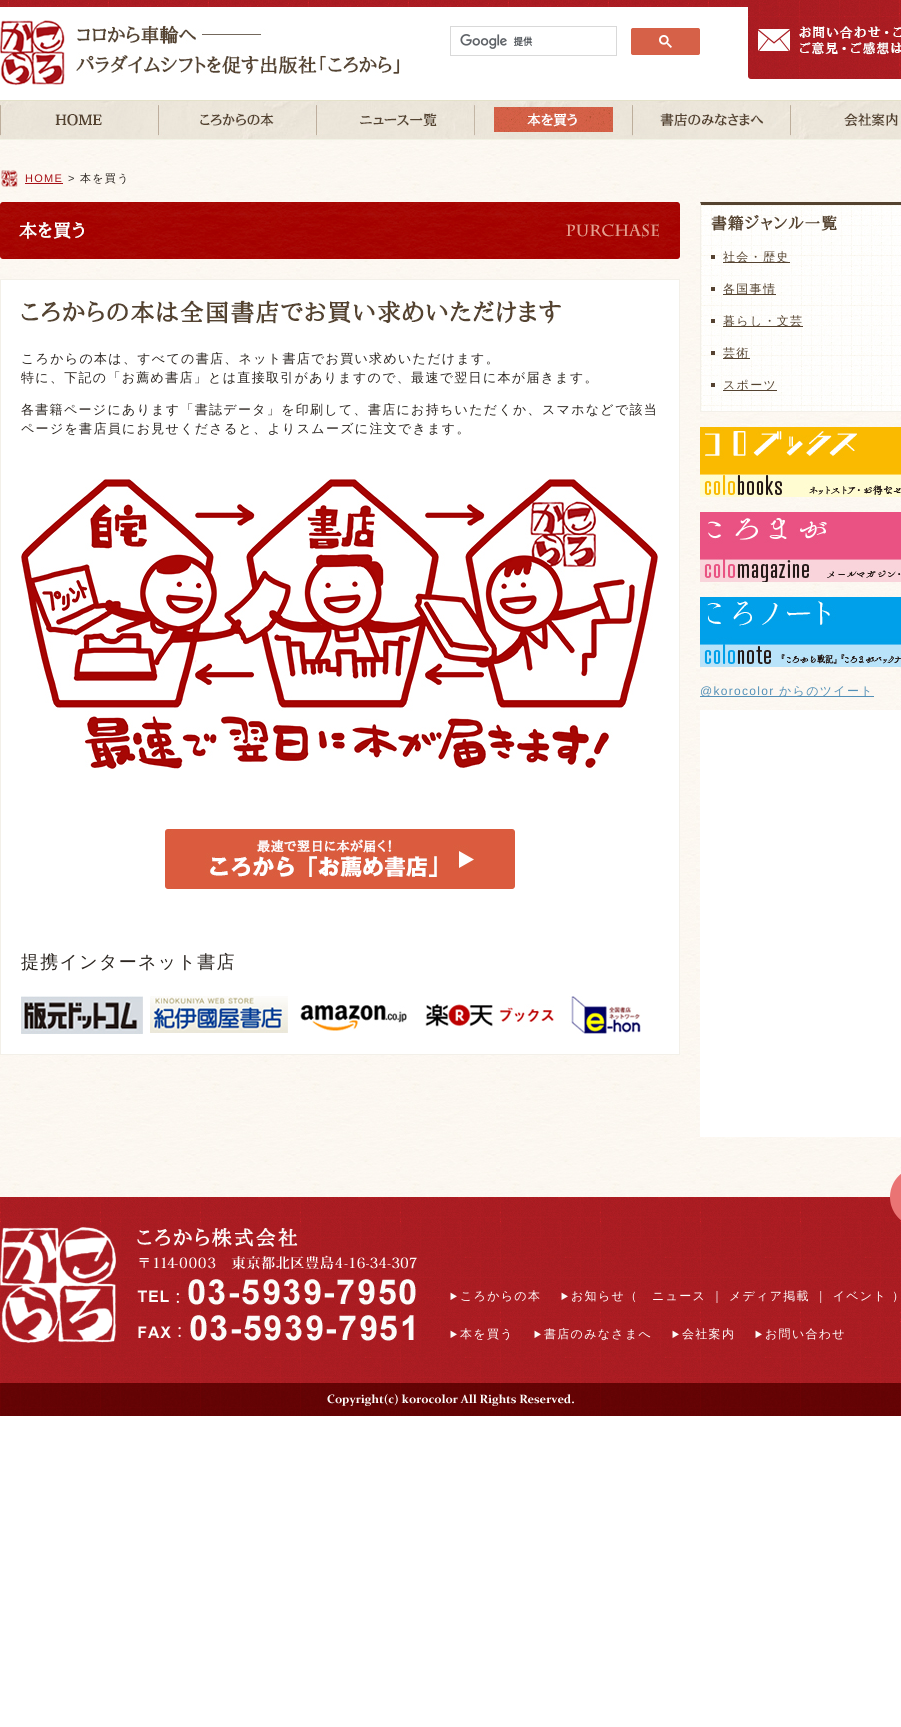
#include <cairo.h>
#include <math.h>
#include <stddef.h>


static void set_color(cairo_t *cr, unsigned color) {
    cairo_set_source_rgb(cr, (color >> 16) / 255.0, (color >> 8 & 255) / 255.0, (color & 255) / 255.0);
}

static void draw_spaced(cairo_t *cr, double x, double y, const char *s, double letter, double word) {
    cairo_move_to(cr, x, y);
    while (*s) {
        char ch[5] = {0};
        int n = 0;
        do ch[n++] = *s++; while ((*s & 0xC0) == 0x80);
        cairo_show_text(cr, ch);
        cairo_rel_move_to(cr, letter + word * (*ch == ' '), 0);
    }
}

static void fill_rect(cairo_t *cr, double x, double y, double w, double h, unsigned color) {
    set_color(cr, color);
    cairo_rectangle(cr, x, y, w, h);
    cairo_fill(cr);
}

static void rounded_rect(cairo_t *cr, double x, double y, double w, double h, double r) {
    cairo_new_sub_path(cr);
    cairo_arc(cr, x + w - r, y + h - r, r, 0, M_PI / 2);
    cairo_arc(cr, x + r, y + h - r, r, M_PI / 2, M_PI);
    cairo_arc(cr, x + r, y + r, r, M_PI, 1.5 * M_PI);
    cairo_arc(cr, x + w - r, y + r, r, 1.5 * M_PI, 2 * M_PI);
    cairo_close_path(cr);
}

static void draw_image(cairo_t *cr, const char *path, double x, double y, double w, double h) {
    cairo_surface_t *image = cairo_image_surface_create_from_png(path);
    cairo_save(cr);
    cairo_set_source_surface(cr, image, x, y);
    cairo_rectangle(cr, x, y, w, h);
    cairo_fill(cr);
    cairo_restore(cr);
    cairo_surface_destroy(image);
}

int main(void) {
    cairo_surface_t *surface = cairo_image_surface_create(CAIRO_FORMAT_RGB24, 901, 1727);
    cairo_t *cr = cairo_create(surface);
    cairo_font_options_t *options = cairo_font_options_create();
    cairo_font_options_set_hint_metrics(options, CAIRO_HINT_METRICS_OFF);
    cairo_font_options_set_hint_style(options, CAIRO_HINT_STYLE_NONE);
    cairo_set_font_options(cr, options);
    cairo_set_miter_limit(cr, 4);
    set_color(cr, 0xFFFFFF);
    cairo_paint(cr);
    draw_image(cr, "assets/img1.png", 0, 140, 901, 1057);
    draw_image(cr, "assets/img2.png", 0, 0, 748, 7);
    draw_image(cr, "assets/img3.png", 0, 20, 65, 66);
    draw_image(cr, "assets/img4.png", 76, 22, 324, 54);
    cairo_rectangle(cr, 450.5, 26.5, 166, 29);
    set_color(cr, 0xD9D9D9);
    cairo_set_line_width(cr, 1);
    cairo_stroke(cr);
    draw_image(cr, "assets/img5.png", 460, 34, 73, 15);
    set_color(cr, 0xD66148);
    rounded_rect(cr, 631.5, 28.5, 68, 26, 1.5);
    cairo_fill_preserve(cr);
    set_color(cr, 0xD66147);
    cairo_stroke(cr);
    draw_image(cr, "assets/img6.png", 659, 35, 13, 13);
    draw_image(cr, "assets/img7.png", 748, 0, 153, 79);
    draw_image(cr, "assets/img8.png", 0, 100, 901, 40);
    draw_image(cr, "assets/img9.png", 0, 101, 158, 38);
    draw_image(cr, "assets/img10.png", 158, 101, 158, 38);
    draw_image(cr, "assets/img11.png", 316, 101, 158, 38);
    draw_image(cr, "assets/img12.png", 474, 101, 158, 38);
    draw_image(cr, "assets/img13.png", 632, 101, 158, 38);
    draw_image(cr, "assets/img14.png", 790, 101, 109, 38);
    draw_image(cr, "assets/img15.png", 1, 170, 18, 17);
    cairo_select_font_face(cr, "Liberation Sans", CAIRO_FONT_SLANT_NORMAL, CAIRO_FONT_WEIGHT_NORMAL);
    cairo_set_font_size(cr, 11);
    set_color(cr, 0xA71218);
    draw_spaced(cr, 25, 182, "HOME", 1.3, 0);
    fill_rect(cr, 25, 183, 38, 1, 0xA71218);
    set_color(cr, 0x34302C);
    draw_spaced(cr, 68, 182, ">", 1.3, 0);
    cairo_select_font_face(cr, "WenQuanYi Zen Hei Medium", CAIRO_FONT_SLANT_NORMAL, CAIRO_FONT_WEIGHT_NORMAL);
    set_color(cr, 0x2B2520);
    draw_spaced(cr, 80, 182, "本を買う", 1.3, 0);
    draw_image(cr, "assets/img16.png", 0, 202, 680, 57);
    set_color(cr, 0xFFFFFF);
    cairo_rectangle(cr, 0.5, 279.5, 679, 775);
    cairo_fill_preserve(cr);
    set_color(cr, 0xF3F0E9);
    cairo_stroke(cr);
    draw_image(cr, "assets/img17.png", 21, 300, 540, 24);
    cairo_set_font_size(cr, 13);
    set_color(cr, 0x2B2520);
    draw_spaced(cr, 21, 363, "ころからの本は、すべての書店、ネット書店でお買い求めいただけます。", 1.3, 0);
    draw_spaced(cr, 21, 382, "特に、下記の「お薦め書店」とは直接取引がありますので、最速で翌日に本が届きます。", 1.3, 0);
    draw_spaced(cr, 21, 414, "各書籍ページにあります「書誌データ」を印刷して、書店にお持ちいただくか、スマホなどで該当", 1.3, 0);
    draw_spaced(cr, 21, 433, "ページを書店員にお見せくださると、よりスムーズに注文できます。", 1.3, 0);
    draw_image(cr, "assets/img18.png", 21, 479, 637, 290);
    draw_image(cr, "assets/img19.png", 165, 829, 350, 60);
    cairo_set_font_size(cr, 18);
    draw_spaced(cr, 21, 968, "提携インターネット書店", 1.3, 0);
    draw_image(cr, "assets/img20.png", 21, 996, 122, 38);
    draw_image(cr, "assets/img21.png", 150, 996, 138, 37);
    draw_image(cr, "assets/img22.png", 300, 1005, 107, 26);
    draw_image(cr, "assets/img23.png", 425, 1004, 129, 23);
    draw_image(cr, "assets/img24.png", 569, 996, 72, 38);
    draw_image(cr, "assets/img25.png", 700, 202, 201, 209);
    set_color(cr, 0x554330);
    cairo_new_path(cr);
    cairo_move_to(cr, 700, 202);
    cairo_line_to(cr, 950, 202);
    cairo_line_to(cr, 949, 205);
    cairo_line_to(cr, 701, 205);
    cairo_close_path(cr);
    cairo_fill(cr);
    fill_rect(cr, 700, 411, 201, 1, 0xF3F0E9);
    cairo_new_path(cr);
    cairo_move_to(cr, 700, 412);
    cairo_line_to(cr, 700, 202);
    cairo_line_to(cr, 701, 205);
    cairo_line_to(cr, 701, 411);
    cairo_close_path(cr);
    cairo_fill(cr);
    draw_image(cr, "assets/img26.png", 711, 215, 126, 16);
    fill_rect(cr, 711, 255, 4, 4, 0x554231);
    fill_rect(cr, 723, 262, 67, 1, 0x554330);
    cairo_set_font_size(cr, 12);
    draw_spaced(cr, 723, 261, "社会・歴史", 1.3, 0);
    fill_rect(cr, 711, 287, 4, 4, 0x554231);
    fill_rect(cr, 723, 294, 53, 1, 0x554330);
    draw_spaced(cr, 723, 293, "各国事情", 1.3, 0);
    fill_rect(cr, 711, 319, 4, 4, 0x554231);
    fill_rect(cr, 723, 326, 80, 1, 0x554330);
    draw_spaced(cr, 723, 325, "暮らし・文芸", 1.3, 0);
    fill_rect(cr, 711, 351, 4, 4, 0x554231);
    fill_rect(cr, 723, 358, 27, 1, 0x554330);
    draw_spaced(cr, 723, 357, "芸術", 1.3, 0);
    fill_rect(cr, 711, 383, 4, 4, 0x554231);
    fill_rect(cr, 723, 390, 54, 1, 0x554330);
    draw_spaced(cr, 723, 389, "スポーツ", 1.3, 0);
    draw_image(cr, "assets/img27.png", 700, 427, 201, 70);
    draw_image(cr, "assets/img28.png", 700, 512, 201, 70);
    draw_image(cr, "assets/img29.png", 700, 597, 201, 70);
    fill_rect(cr, 700, 696, 174, 1, 0x5390B7);
    cairo_select_font_face(cr, "Liberation Sans", CAIRO_FONT_SLANT_NORMAL, CAIRO_FONT_WEIGHT_NORMAL);
    draw_spaced(cr, 700, 695, "@korocolor", 1.3, 0);
    cairo_select_font_face(cr, "WenQuanYi Zen Hei Medium", CAIRO_FONT_SLANT_NORMAL, CAIRO_FONT_WEIGHT_NORMAL);
    draw_spaced(cr, 779, 695, "からのツイート", 1.3, 0);
    fill_rect(cr, 700, 710, 201, 427, 0xFFFFFF);
    draw_image(cr, "assets/img30.png", 0, 1197, 901, 186);
    draw_image(cr, "assets/img31.png", 890, 1174, 11, 46);
    draw_image(cr, "assets/img32.png", 0, 1227, 116, 116);
    draw_image(cr, "assets/img33.png", 137, 1228, 280, 113);
    draw_image(cr, "assets/img34.png", 450, 1292, 7, 8);
    draw_spaced(cr, 460, 1300, "ころからの本", 1.3, 0);
    draw_image(cr, "assets/img35.png", 561, 1292, 7, 8);
    draw_spaced(cr, 571, 1300, "お知らせ（", 1.3, 0);
    draw_spaced(cr, 652, 1300, "ニュース ｜ メディア掲載 ｜ イベント ）", 1.3, 0);
    draw_image(cr, "assets/img36.png", 450, 1330, 7, 8);
    draw_spaced(cr, 460, 1338, "本を買う", 1.3, 0);
    draw_image(cr, "assets/img37.png", 534, 1330, 7, 8);
    draw_spaced(cr, 544, 1338, "書店のみなさまへ", 1.3, 0);
    draw_image(cr, "assets/img38.png", 672, 1330, 7, 8);
    draw_spaced(cr, 682, 1338, "会社案内", 1.3, 0);
    draw_image(cr, "assets/img39.png", 755, 1330, 7, 8);
    draw_spaced(cr, 765, 1338, "お問い合わせ", 1.3, 0);
    draw_image(cr, "assets/img40.png", 0, 1383, 901, 33);
    draw_image(cr, "assets/img41.png", 327, 1393, 247, 13);
    cairo_surface_write_to_png(surface, "output.png");
    cairo_font_options_destroy(options);
    cairo_destroy(cr);
    cairo_surface_destroy(surface);
    return 0;
}
